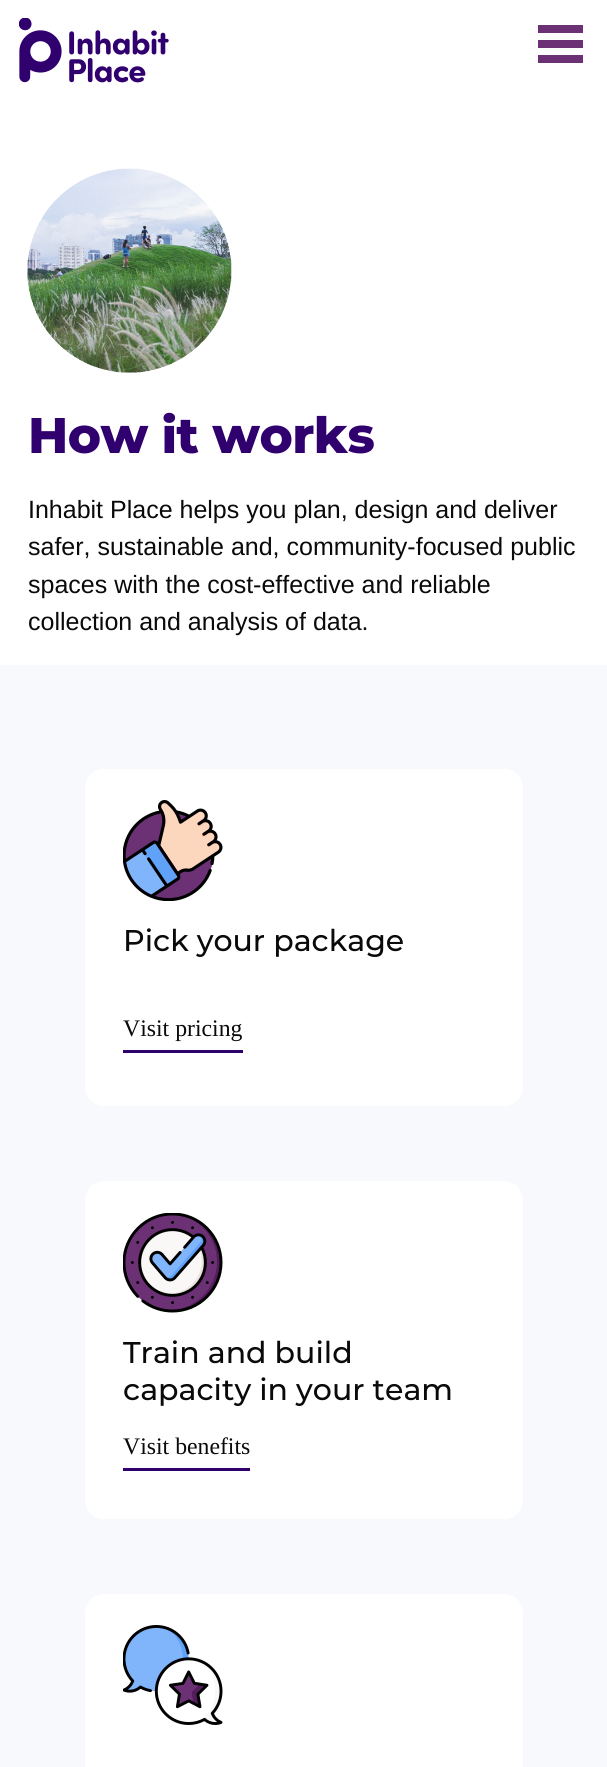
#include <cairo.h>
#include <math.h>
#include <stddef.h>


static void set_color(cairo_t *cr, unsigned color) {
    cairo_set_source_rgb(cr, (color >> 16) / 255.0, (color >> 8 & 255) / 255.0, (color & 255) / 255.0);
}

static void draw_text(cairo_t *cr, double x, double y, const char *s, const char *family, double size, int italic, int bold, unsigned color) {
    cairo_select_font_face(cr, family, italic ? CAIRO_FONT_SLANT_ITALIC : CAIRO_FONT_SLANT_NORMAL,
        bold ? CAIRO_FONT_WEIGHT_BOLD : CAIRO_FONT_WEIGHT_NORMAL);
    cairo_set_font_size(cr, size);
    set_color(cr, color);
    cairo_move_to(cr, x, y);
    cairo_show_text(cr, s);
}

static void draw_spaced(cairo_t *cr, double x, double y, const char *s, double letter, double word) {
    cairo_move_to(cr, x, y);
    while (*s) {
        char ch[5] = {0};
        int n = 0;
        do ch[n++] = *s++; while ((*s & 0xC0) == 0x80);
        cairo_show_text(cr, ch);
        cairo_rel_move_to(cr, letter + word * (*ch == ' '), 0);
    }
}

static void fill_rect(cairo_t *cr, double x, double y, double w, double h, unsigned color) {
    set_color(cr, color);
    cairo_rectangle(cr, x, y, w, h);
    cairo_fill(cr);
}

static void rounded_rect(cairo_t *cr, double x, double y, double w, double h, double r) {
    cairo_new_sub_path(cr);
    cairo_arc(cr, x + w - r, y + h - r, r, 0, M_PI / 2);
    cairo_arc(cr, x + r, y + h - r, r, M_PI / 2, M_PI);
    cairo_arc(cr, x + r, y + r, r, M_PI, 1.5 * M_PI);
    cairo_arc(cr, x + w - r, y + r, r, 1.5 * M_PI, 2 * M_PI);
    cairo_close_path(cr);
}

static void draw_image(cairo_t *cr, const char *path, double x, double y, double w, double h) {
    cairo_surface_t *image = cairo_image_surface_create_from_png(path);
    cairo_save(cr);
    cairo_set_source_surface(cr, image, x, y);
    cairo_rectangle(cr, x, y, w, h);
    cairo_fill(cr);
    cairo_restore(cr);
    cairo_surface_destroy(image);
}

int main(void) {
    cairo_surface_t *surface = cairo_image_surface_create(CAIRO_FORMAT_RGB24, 607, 1767);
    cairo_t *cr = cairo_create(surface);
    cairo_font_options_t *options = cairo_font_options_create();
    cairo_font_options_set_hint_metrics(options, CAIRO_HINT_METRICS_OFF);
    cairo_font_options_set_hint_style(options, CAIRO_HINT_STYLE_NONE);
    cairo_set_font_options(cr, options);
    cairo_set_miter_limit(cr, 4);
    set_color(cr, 0xFFFFFF);
    cairo_paint(cr);
    draw_image(cr, "assets/img1.png", 19, 18, 150, 65);
    fill_rect(cr, 538, 25, 45, 8, 0x6C3175);
    fill_rect(cr, 538, 40, 45, 8, 0x6C3175);
    fill_rect(cr, 538, 55, 45, 8, 0x6C3175);
    draw_image(cr, "assets/img2.png", 27, 168, 205, 205);
    cairo_select_font_face(cr, "Montserrat ExtraBold", CAIRO_FONT_SLANT_NORMAL, CAIRO_FONT_WEIGHT_NORMAL);
    cairo_set_font_size(cr, 50);
    set_color(cr, 0x31006F);
    draw_spaced(cr, 28, 453, "How it works", -0.6, 0);
    draw_text(cr, 28, 518, "Inhabit Place helps you plan, design and deliver", "Liberation Sans", 25, 0, 0, 0x0A0A0A);
    draw_text(cr, 28, 555, "safer, sustainable and, community-focused public", "Liberation Sans", 25, 0, 0, 0x0A0A0A);
    draw_text(cr, 28, 593, "spaces with the cost-effective and reliable", "Liberation Sans", 25, 0, 0, 0x0A0A0A);
    draw_text(cr, 28, 630, "collection and analysis of data.", "Liberation Sans", 25, 0, 0, 0x0A0A0A);
    fill_rect(cr, 0, 665, 607, 1102, 0xF7F9FC);
    set_color(cr, 0xFFFFFF);
    rounded_rect(cr, 85, 769, 438, 337, 19);
    cairo_fill(cr);
    draw_image(cr, "assets/img3.png", 123, 800, 100, 101);
    draw_text(cr, 123, 951, "Pick your package", "Montserrat Medium", 30, 0, 0, 0x0A0A0A);
    draw_text(cr, 123, 1036, "Visit pricing", "Liberation Serif", 23.75, 0, 0, 0x0A0A0A);
    fill_rect(cr, 123, 1050, 120, 3, 0x31006F);
    set_color(cr, 0xFFFFFF);
    rounded_rect(cr, 85, 1181, 438, 338, 19);
    cairo_fill(cr);
    draw_image(cr, "assets/img4.png", 123, 1213, 100, 100);
    draw_text(cr, 123, 1363, "Train and build", "Montserrat Medium", 30, 0, 0, 0x0A0A0A);
    draw_text(cr, 123, 1400, "capacity in your team", "Montserrat Medium", 30, 0, 0, 0x0A0A0A);
    draw_text(cr, 123, 1454, "Visit benefits", "Liberation Serif", 23.75, 0, 0, 0x0A0A0A);
    fill_rect(cr, 123, 1468, 127, 3, 0x31006F);
    set_color(cr, 0xFFFFFF);
    rounded_rect(cr, 85, 1594, 438, 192, 19);
    cairo_fill(cr);
    draw_image(cr, "assets/img5.png", 123, 1625, 100, 100);
    cairo_surface_write_to_png(surface, "output.png");
    cairo_font_options_destroy(options);
    cairo_destroy(cr);
    cairo_surface_destroy(surface);
    return 0;
}
